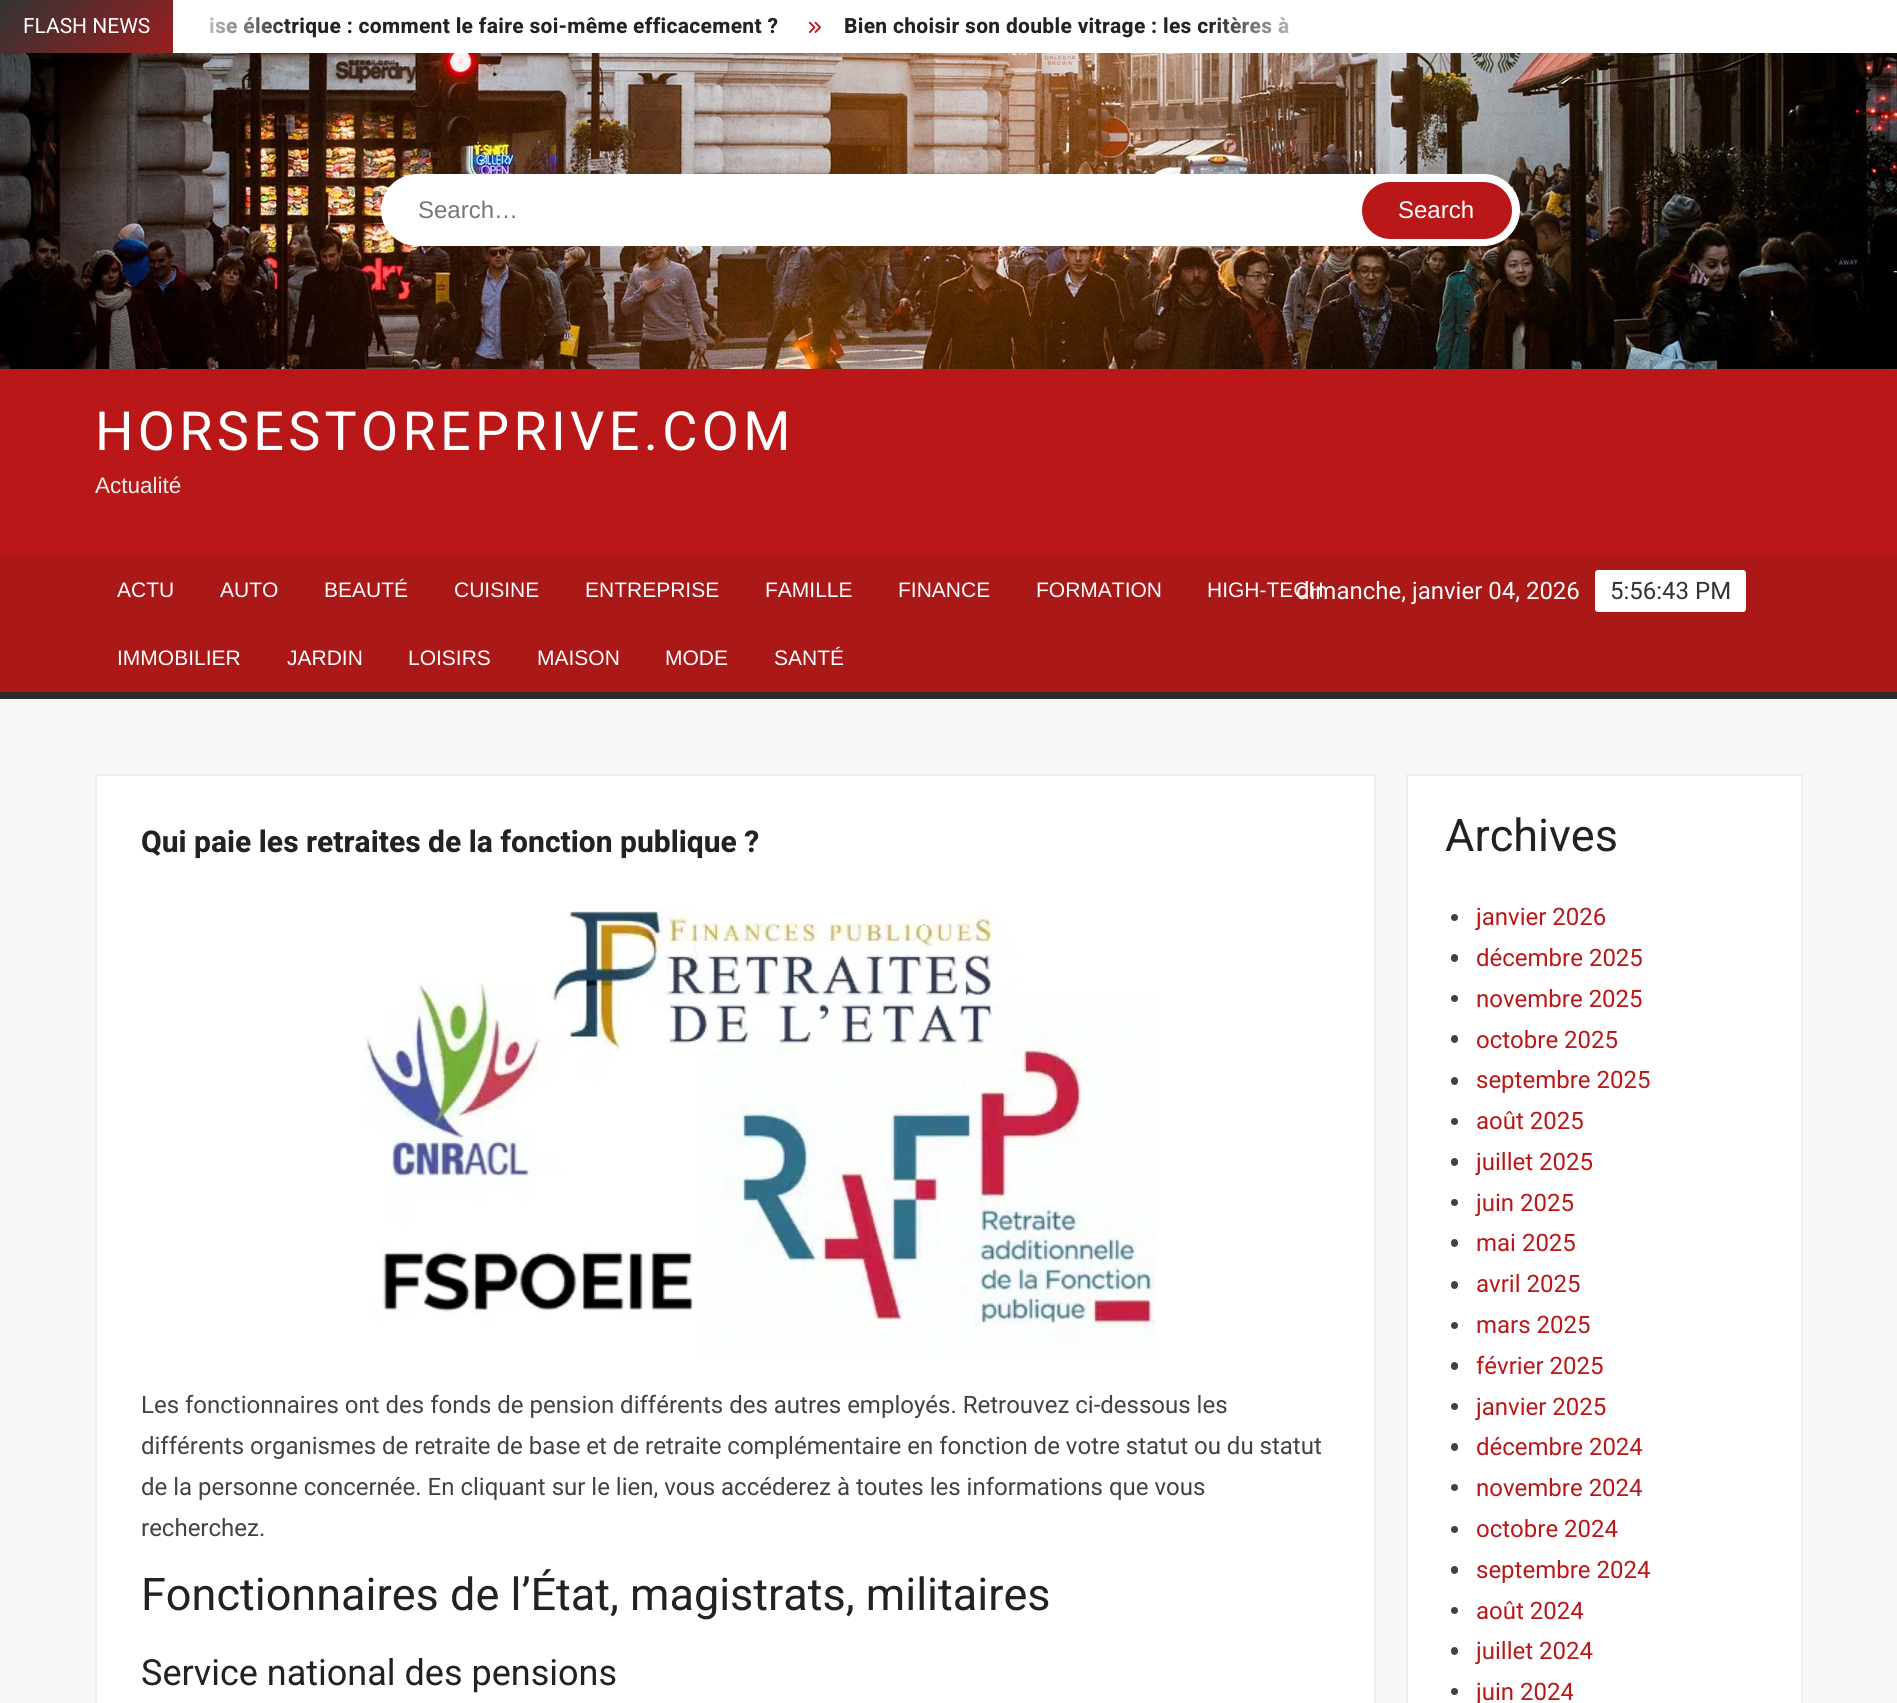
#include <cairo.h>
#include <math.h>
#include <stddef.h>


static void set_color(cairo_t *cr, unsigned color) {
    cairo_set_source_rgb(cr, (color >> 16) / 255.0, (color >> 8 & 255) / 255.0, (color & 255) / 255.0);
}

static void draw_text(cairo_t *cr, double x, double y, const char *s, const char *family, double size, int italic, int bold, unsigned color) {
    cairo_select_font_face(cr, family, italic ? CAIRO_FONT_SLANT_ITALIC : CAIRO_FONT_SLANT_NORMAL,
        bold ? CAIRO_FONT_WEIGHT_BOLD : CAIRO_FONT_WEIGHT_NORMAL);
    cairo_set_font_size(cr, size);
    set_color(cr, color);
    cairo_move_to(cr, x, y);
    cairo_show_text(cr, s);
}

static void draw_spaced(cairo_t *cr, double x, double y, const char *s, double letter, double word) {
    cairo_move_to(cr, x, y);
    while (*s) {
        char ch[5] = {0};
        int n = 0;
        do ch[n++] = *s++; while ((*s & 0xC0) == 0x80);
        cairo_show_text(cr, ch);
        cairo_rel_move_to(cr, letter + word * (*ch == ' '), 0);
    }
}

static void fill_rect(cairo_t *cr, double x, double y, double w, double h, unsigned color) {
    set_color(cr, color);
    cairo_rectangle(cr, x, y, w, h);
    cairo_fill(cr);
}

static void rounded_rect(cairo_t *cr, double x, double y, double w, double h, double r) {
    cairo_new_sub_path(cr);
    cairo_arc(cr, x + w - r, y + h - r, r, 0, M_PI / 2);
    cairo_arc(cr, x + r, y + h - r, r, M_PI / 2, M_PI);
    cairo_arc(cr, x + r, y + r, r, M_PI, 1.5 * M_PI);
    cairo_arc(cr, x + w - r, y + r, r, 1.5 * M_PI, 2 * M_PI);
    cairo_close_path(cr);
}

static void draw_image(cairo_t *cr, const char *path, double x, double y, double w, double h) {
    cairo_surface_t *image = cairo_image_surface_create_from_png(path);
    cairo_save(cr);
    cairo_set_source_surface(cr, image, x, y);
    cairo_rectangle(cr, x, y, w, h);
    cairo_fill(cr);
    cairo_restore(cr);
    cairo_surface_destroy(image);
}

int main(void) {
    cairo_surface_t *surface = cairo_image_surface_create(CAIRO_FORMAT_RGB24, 1897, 1703);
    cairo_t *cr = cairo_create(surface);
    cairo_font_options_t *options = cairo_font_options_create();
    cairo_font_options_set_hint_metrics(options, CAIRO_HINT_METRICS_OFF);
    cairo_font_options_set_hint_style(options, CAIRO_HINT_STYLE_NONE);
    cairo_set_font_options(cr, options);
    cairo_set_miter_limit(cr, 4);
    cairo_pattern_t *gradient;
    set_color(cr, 0xF8F8F8);
    cairo_paint(cr);
    fill_rect(cr, 174, 0, 1723, 53, 0xFFFFFF);
    gradient = cairo_pattern_create_linear(570, 330, 120, -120);
    cairo_pattern_add_color_stop_rgba(gradient, 0, 0.729, 0.094, 0.094, 1);
    cairo_pattern_add_color_stop_rgba(gradient, 0.33, 0.933, 0.933, 0.933, 1);
    cairo_pattern_add_color_stop_rgba(gradient, 0.67, 0.729, 0.094, 0.094, 1);
    cairo_pattern_add_color_stop_rgba(gradient, 1, 0.2, 0.2, 0.2, 1);
    cairo_set_source(cr, gradient);
    cairo_pattern_destroy(gradient);
    cairo_rectangle(cr, 0, 0, 173, 53);
    cairo_fill(cr);
    draw_text(cr, 23, 33, "FLASH NEWS", "Heebo", 21, 0, 0, 0xFFFFFF);
    cairo_select_font_face(cr, "Heebo", CAIRO_FONT_SLANT_NORMAL, CAIRO_FONT_WEIGHT_BOLD);
    set_color(cr, 0x222222);
    draw_spaced(cr, 209, 33, "ise électrique : comment le faire soi-même efficacement ?", 0.3, 0);
    gradient = cairo_pattern_create_linear(173, 26, 293, 26);
    cairo_pattern_add_color_stop_rgba(gradient, 0, 1, 1, 1, 1);
    cairo_pattern_add_color_stop_rgba(gradient, 1, 1, 1, 1, 0);
    cairo_set_source(cr, gradient);
    cairo_pattern_destroy(gradient);
    cairo_rectangle(cr, 173, 0, 117, 53);
    cairo_fill(cr);
    draw_image(cr, "assets/img1.png", 808, 21, 13, 12);
    set_color(cr, 0x222222);
    draw_spaced(cr, 844, 33, "Bien choisir son double vitrage : les critères à", 0.3, 0);
    gradient = cairo_pattern_create_linear(1209, 26, 1329, 26);
    cairo_pattern_add_color_stop_rgba(gradient, 0, 1, 1, 1, 0);
    cairo_pattern_add_color_stop_rgba(gradient, 1, 1, 1, 1, 1);
    cairo_set_source(cr, gradient);
    cairo_pattern_destroy(gradient);
    cairo_rectangle(cr, 1212, 17, 77, 17);
    cairo_fill(cr);
    draw_image(cr, "assets/img2.png", 0, 53, 1897, 316);
    set_color(cr, 0xFFFFFF);
    rounded_rect(cr, 381, 174, 1139, 72, 36);
    cairo_fill(cr);
    draw_text(cr, 418, 218, "Search…", "Arimo", 24, 0, 0, 0x757575);
    set_color(cr, 0xBA1818);
    rounded_rect(cr, 1362, 182, 150, 57, 28.5);
    cairo_fill(cr);
    draw_text(cr, 1398, 218, "Search", "Arimo", 24, 0, 0, 0xFFFFFF);
    fill_rect(cr, 0, 369, 1897, 188, 0xBA1818);
    cairo_select_font_face(cr, "Heebo", CAIRO_FONT_SLANT_NORMAL, CAIRO_FONT_WEIGHT_NORMAL);
    cairo_set_font_size(cr, 54);
    set_color(cr, 0xFFFFFF);
    draw_spaced(cr, 95, 450, "HORSESTOREPRIVE.COM", 4.3, 0);
    draw_text(cr, 95, 493, "Actualité", "Arimo", 22.5, 0, 0, 0xEEEEEE);
    fill_rect(cr, 0, 557, 1897, 135, 0xAA1818);
    fill_rect(cr, 0, 692, 1897, 7, 0x2C2C2C);
    draw_text(cr, 117, 597, "ACTU", "Arimo", 21, 0, 0, 0xFFFFFF);
    draw_text(cr, 220, 597, "AUTO", "Arimo", 21, 0, 0, 0xFFFFFF);
    draw_text(cr, 324, 597, "BEAUTÉ", "Arimo", 21, 0, 0, 0xFFFFFF);
    draw_text(cr, 454, 597, "CUISINE", "Arimo", 21, 0, 0, 0xFFFFFF);
    draw_text(cr, 585, 597, "ENTREPRISE", "Arimo", 21, 0, 0, 0xFFFFFF);
    draw_text(cr, 765, 597, "FAMILLE", "Arimo", 21, 0, 0, 0xFFFFFF);
    draw_text(cr, 898, 597, "FINANCE", "Arimo", 21, 0, 0, 0xFFFFFF);
    draw_text(cr, 1036, 597, "FORMATION", "Arimo", 21, 0, 0, 0xFFFFFF);
    draw_text(cr, 1207, 597, "HIGH-TECH", "Arimo", 21, 0, 0, 0xFFFFFF);
    draw_text(cr, 117, 665, "IMMOBILIER", "Arimo", 21, 0, 0, 0xFFFFFF);
    draw_text(cr, 287, 665, "JARDIN", "Arimo", 21, 0, 0, 0xFFFFFF);
    draw_text(cr, 408, 665, "LOISIRS", "Arimo", 21, 0, 0, 0xFFFFFF);
    draw_text(cr, 537, 665, "MAISON", "Arimo", 21, 0, 0, 0xFFFFFF);
    draw_text(cr, 665, 665, "MODE", "Arimo", 21, 0, 0, 0xFFFFFF);
    draw_text(cr, 774, 665, "SANTÉ", "Arimo", 21, 0, 0, 0xFFFFFF);
    draw_text(cr, 1296, 599, "dimanche, janvier 04, 2026", "Roboto", 24, 0, 0, 0xFFFFFF);
    rounded_rect(cr, 1595, 570, 151, 42, 3);
    cairo_fill(cr);
    draw_text(cr, 1610, 599, "5:56:43 PM", "Roboto", 24, 0, 0, 0x333333);
    set_color(cr, 0xFFFFFF);
    cairo_rectangle(cr, 96, 775, 1279, 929);
    cairo_fill_preserve(cr);
    set_color(cr, 0xEEEEEE);
    cairo_stroke(cr);
    draw_text(cr, 141, 852, "Qui paie les retraites de la fonction publique ?", "Heebo", 30, 0, 1, 0x222222);
    draw_image(cr, "assets/img3.png", 364, 908, 791, 452);
    draw_text(cr, 141, 1413, "Les fonctionnaires ont des fonds de pension différents des autres employés. Retrouvez ci-dessous les", "Roboto", 24, 0, 0, 0x424242);
    draw_text(cr, 141, 1454, "différents organismes de retraite de base et de retraite complémentaire en fonction de votre statut ou du statut", "Roboto", 24, 0, 0, 0x424242);
    draw_text(cr, 141, 1495, "de la personne concernée. En cliquant sur le lien, vous accéderez à toutes les informations que vous", "Roboto", 24, 0, 0, 0x424242);
    draw_text(cr, 141, 1536, "recherchez.", "Roboto", 24, 0, 0, 0x424242);
    draw_text(cr, 141, 1610, "Fonctionnaires de l’État, magistrats, militaires", "Heebo", 45, 0, 0, 0x222222);
    draw_text(cr, 141, 1685, "Service national des pensions", "Heebo", 36, 0, 0, 0x222222);
    set_color(cr, 0xFFFFFF);
    cairo_rectangle(cr, 1407, 775, 395, 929);
    cairo_fill_preserve(cr);
    set_color(cr, 0xEEEEEE);
    cairo_stroke(cr);
    draw_text(cr, 1445, 851, "Archives", "Heebo", 45, 0, 0, 0x222222);
    set_color(cr, 0x424242);
    cairo_new_path(cr);
    cairo_arc(cr, 1454.5, 917.5, 3.5, 0, 2 * M_PI);
    cairo_fill(cr);
    draw_text(cr, 1476, 925, "janvier 2026", "Roboto", 24, 0, 0, 0xBA1818);
    set_color(cr, 0x424242);
    rounded_rect(cr, 1451, 954, 7, 8, 3.5);
    cairo_fill(cr);
    draw_text(cr, 1476, 966, "décembre 2025", "Roboto", 24, 0, 0, 0xBA1818);
    set_color(cr, 0x424242);
    cairo_new_path(cr);
    cairo_arc(cr, 1454.5, 998.5, 3.5, 0, 2 * M_PI);
    cairo_fill(cr);
    draw_text(cr, 1476, 1007, "novembre 2025", "Roboto", 24, 0, 0, 0xBA1818);
    set_color(cr, 0x424242);
    rounded_rect(cr, 1451, 1035, 7, 8, 3.5);
    cairo_fill(cr);
    draw_text(cr, 1476, 1048, "octobre 2025", "Roboto", 24, 0, 0, 0xBA1818);
    set_color(cr, 0x424242);
    rounded_rect(cr, 1451, 1077, 7, 8, 3.5);
    cairo_fill(cr);
    draw_text(cr, 1476, 1088, "septembre 2025", "Roboto", 24, 0, 0, 0xBA1818);
    set_color(cr, 0x424242);
    cairo_new_path(cr);
    cairo_arc(cr, 1454.5, 1121.5, 3.5, 0, 2 * M_PI);
    cairo_fill(cr);
    draw_text(cr, 1476, 1129, "août 2025", "Roboto", 24, 0, 0, 0xBA1818);
    set_color(cr, 0x424242);
    rounded_rect(cr, 1451, 1158, 7, 8, 3.5);
    cairo_fill(cr);
    draw_text(cr, 1476, 1170, "juillet 2025", "Roboto", 24, 0, 0, 0xBA1818);
    set_color(cr, 0x424242);
    cairo_new_path(cr);
    cairo_arc(cr, 1454.5, 1202.5, 3.5, 0, 2 * M_PI);
    cairo_fill(cr);
    draw_text(cr, 1476, 1211, "juin 2025", "Roboto", 24, 0, 0, 0xBA1818);
    set_color(cr, 0x424242);
    rounded_rect(cr, 1451, 1239, 7, 8, 3.5);
    cairo_fill(cr);
    draw_text(cr, 1476, 1251, "mai 2025", "Roboto", 24, 0, 0, 0xBA1818);
    set_color(cr, 0x424242);
    rounded_rect(cr, 1451, 1281, 7, 8, 3.5);
    cairo_fill(cr);
    draw_text(cr, 1476, 1292, "avril 2025", "Roboto", 24, 0, 0, 0xBA1818);
    set_color(cr, 0x424242);
    cairo_new_path(cr);
    cairo_arc(cr, 1454.5, 1325.5, 3.5, 0, 2 * M_PI);
    cairo_fill(cr);
    draw_text(cr, 1476, 1333, "mars 2025", "Roboto", 24, 0, 0, 0xBA1818);
    set_color(cr, 0x424242);
    rounded_rect(cr, 1451, 1362, 7, 8, 3.5);
    cairo_fill(cr);
    draw_text(cr, 1476, 1374, "février 2025", "Roboto", 24, 0, 0, 0xBA1818);
    set_color(cr, 0x424242);
    cairo_new_path(cr);
    cairo_arc(cr, 1454.5, 1406.5, 3.5, 0, 2 * M_PI);
    cairo_fill(cr);
    draw_text(cr, 1476, 1415, "janvier 2025", "Roboto", 24, 0, 0, 0xBA1818);
    set_color(cr, 0x424242);
    rounded_rect(cr, 1451, 1443, 7, 8, 3.5);
    cairo_fill(cr);
    draw_text(cr, 1476, 1455, "décembre 2024", "Roboto", 24, 0, 0, 0xBA1818);
    set_color(cr, 0x424242);
    cairo_new_path(cr);
    cairo_arc(cr, 1454.5, 1487.5, 3.5, 0, 2 * M_PI);
    cairo_fill(cr);
    draw_text(cr, 1476, 1496, "novembre 2024", "Roboto", 24, 0, 0, 0xBA1818);
    set_color(cr, 0x424242);
    cairo_new_path(cr);
    cairo_arc(cr, 1454.5, 1529.5, 3.5, 0, 2 * M_PI);
    cairo_fill(cr);
    draw_text(cr, 1476, 1537, "octobre 2024", "Roboto", 24, 0, 0, 0xBA1818);
    set_color(cr, 0x424242);
    rounded_rect(cr, 1451, 1566, 7, 8, 3.5);
    cairo_fill(cr);
    draw_text(cr, 1476, 1578, "septembre 2024", "Roboto", 24, 0, 0, 0xBA1818);
    set_color(cr, 0x424242);
    cairo_new_path(cr);
    cairo_arc(cr, 1454.5, 1610.5, 3.5, 0, 2 * M_PI);
    cairo_fill(cr);
    draw_text(cr, 1476, 1619, "août 2024", "Roboto", 24, 0, 0, 0xBA1818);
    set_color(cr, 0x424242);
    rounded_rect(cr, 1451, 1647, 7, 8, 3.5);
    cairo_fill(cr);
    draw_text(cr, 1476, 1659, "juillet 2024", "Roboto", 24, 0, 0, 0xBA1818);
    set_color(cr, 0x424242);
    cairo_new_path(cr);
    cairo_arc(cr, 1454.5, 1691.5, 3.5, 0, 2 * M_PI);
    cairo_fill(cr);
    draw_text(cr, 1476, 1700, "juin 2024", "Roboto", 24, 0, 0, 0xBA1818);
    cairo_surface_write_to_png(surface, "output.png");
    cairo_font_options_destroy(options);
    cairo_destroy(cr);
    cairo_surface_destroy(surface);
    return 0;
}
